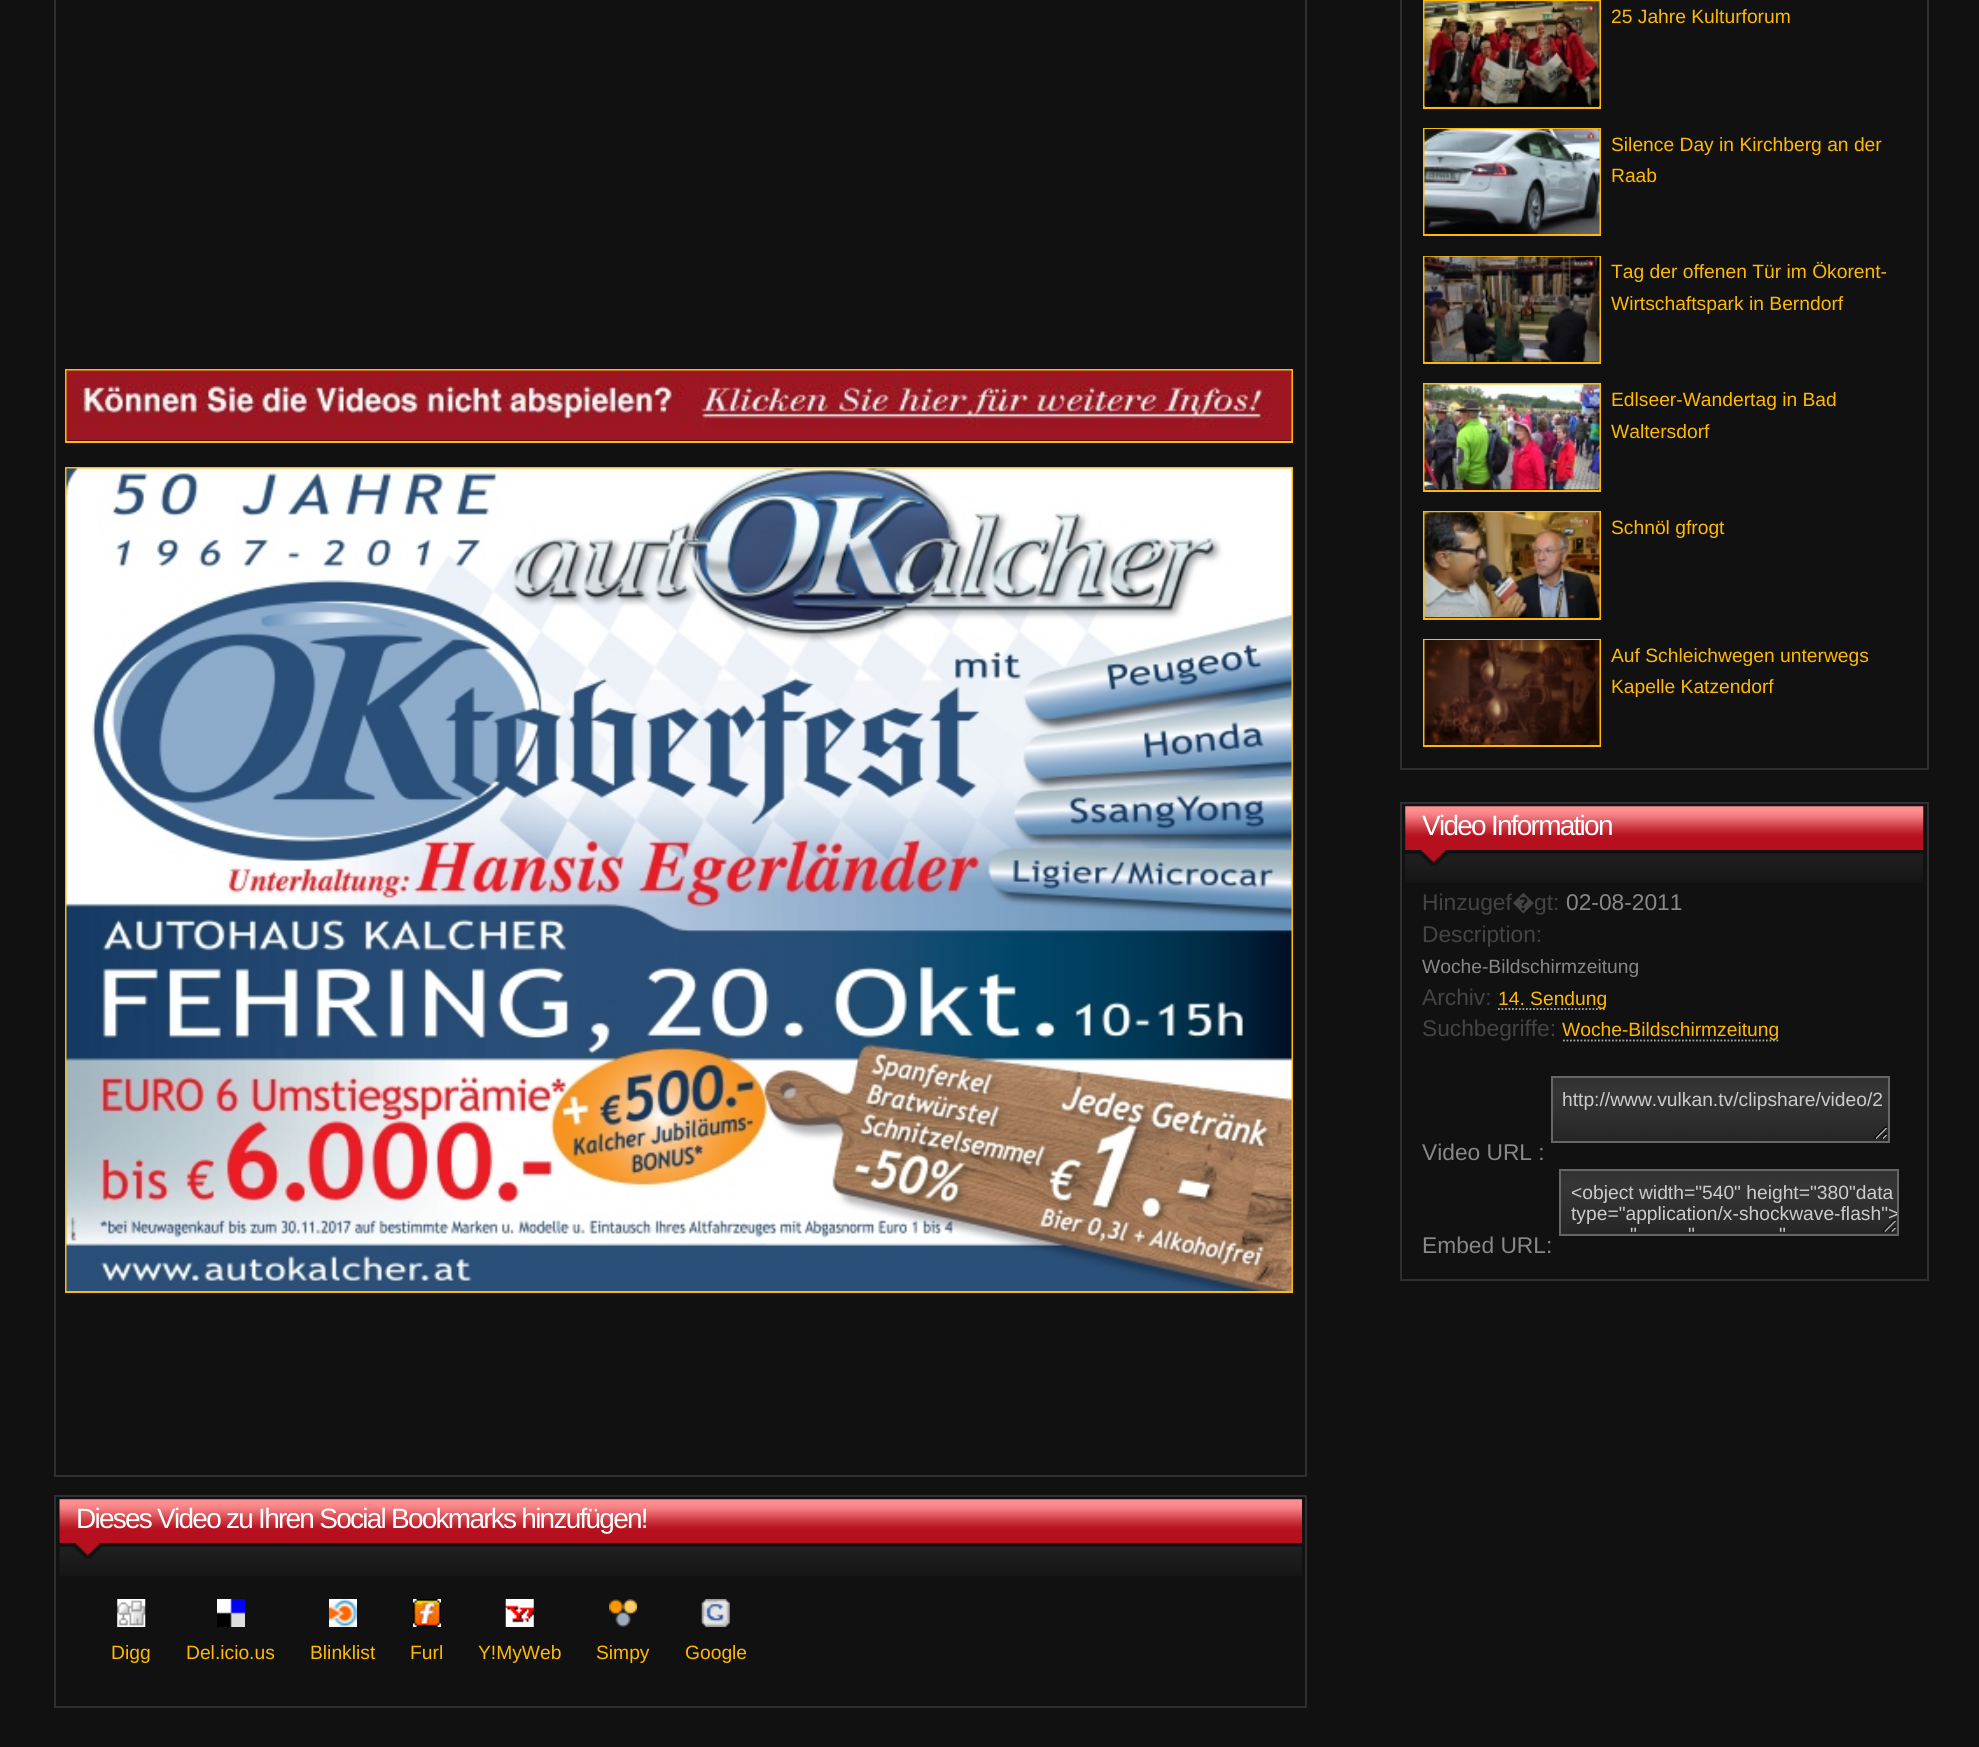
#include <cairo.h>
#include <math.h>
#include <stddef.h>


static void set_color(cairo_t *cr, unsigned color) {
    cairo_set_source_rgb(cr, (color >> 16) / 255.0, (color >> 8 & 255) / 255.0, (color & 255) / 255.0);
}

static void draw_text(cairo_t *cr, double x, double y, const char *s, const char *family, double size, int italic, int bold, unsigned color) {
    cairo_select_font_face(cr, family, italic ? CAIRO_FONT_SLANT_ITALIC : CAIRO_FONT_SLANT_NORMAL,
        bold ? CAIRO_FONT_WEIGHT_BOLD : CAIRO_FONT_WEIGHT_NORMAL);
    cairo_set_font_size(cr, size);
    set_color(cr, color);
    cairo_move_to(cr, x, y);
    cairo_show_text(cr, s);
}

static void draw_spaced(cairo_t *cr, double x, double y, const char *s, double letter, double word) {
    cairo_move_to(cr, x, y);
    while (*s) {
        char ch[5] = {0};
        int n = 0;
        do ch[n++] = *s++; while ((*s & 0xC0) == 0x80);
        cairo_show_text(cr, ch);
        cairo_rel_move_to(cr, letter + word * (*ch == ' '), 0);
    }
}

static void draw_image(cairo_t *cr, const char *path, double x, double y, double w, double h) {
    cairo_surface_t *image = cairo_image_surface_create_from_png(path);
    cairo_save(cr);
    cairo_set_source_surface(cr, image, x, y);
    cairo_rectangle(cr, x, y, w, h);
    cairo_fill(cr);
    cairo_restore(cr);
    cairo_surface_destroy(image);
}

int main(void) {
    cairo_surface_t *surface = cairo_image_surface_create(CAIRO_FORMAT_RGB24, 1979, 1747);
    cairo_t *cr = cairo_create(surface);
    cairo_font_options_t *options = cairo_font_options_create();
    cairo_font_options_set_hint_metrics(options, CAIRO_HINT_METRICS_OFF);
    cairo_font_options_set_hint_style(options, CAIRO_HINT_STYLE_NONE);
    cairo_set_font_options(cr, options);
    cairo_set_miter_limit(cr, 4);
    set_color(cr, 0x111111);
    cairo_paint(cr);
    cairo_rectangle(cr, 1401, -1, 527, 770);
    set_color(cr, 0x2F2F2F);
    cairo_stroke(cr);
    cairo_rectangle(cr, 1424, 1, 176, 107);
    set_color(cr, 0xFFBA00);
    cairo_stroke(cr);
    draw_image(cr, "assets/img1.png", 1424, 1, 176, 106);
    draw_text(cr, 1611, 23, "25 Jahre Kulturforum", "Liberation Sans", 19.25, 0, 0, 0xFFBA00);
    cairo_rectangle(cr, 1424, 129, 176, 106);
    cairo_stroke(cr);
    draw_image(cr, "assets/img2.png", 1424, 129, 176, 105);
    draw_text(cr, 1611, 151, "Silence Day in Kirchberg an der", "Liberation Sans", 19.25, 0, 0, 0xFFBA00);
    draw_text(cr, 1611, 182, "Raab", "Liberation Sans", 19.25, 0, 0, 0xFFBA00);
    cairo_rectangle(cr, 1424, 257, 176, 106);
    cairo_stroke(cr);
    draw_image(cr, "assets/img3.png", 1424, 256, 176, 106);
    draw_text(cr, 1611, 278, "Tag der offenen Tür im Ökorent-", "Liberation Sans", 19.25, 0, 0, 0xFFBA00);
    draw_text(cr, 1611, 310, "Wirtschaftspark in Berndorf", "Liberation Sans", 19.25, 0, 0, 0xFFBA00);
    cairo_rectangle(cr, 1424, 384, 176, 107);
    cairo_stroke(cr);
    draw_image(cr, "assets/img4.png", 1424, 384, 176, 106);
    draw_text(cr, 1611, 406, "Edlseer-Wandertag in Bad", "Liberation Sans", 19.25, 0, 0, 0xFFBA00);
    draw_text(cr, 1611, 438, "Waltersdorf", "Liberation Sans", 19.25, 0, 0, 0xFFBA00);
    cairo_rectangle(cr, 1424, 512, 176, 107);
    cairo_stroke(cr);
    draw_image(cr, "assets/img5.png", 1424, 512, 176, 106);
    draw_text(cr, 1611, 534, "Schnöl gfrogt", "Liberation Sans", 19.25, 0, 0, 0xFFBA00);
    cairo_rectangle(cr, 1424, 640, 176, 106);
    cairo_stroke(cr);
    draw_image(cr, "assets/img6.png", 1424, 640, 176, 105);
    draw_text(cr, 1611, 662, "Auf Schleichwegen unterwegs", "Liberation Sans", 19.25, 0, 0, 0xFFBA00);
    draw_text(cr, 1611, 693, "Kapelle Katzendorf", "Liberation Sans", 19.25, 0, 0, 0xFFBA00);
    cairo_rectangle(cr, 1401, 803, 527, 477);
    set_color(cr, 0x2F2F2F);
    cairo_stroke(cr);
    draw_image(cr, "assets/img7.png", 1405, 806, 519, 44);
    cairo_set_font_size(cr, 28);
    set_color(cr, 0xFFFFFF);
    draw_spaced(cr, 1422, 835, "Video Information", -1.75, 0);
    draw_image(cr, "assets/img8.png", 1405, 853, 518, 30);
    draw_image(cr, "assets/img9.png", 1406, 850, 42, 16);
    draw_text(cr, 1422, 910, "Hinzugef", "Liberation Sans", 22.75, 0, 0, 0x444444);
    draw_text(cr, 1512, 910, "�", "Noto Sans", 22.75, 0, 0, 0x444444);
    draw_text(cr, 1534, 910, "gt:", "Liberation Sans", 22.75, 0, 0, 0x444444);
    draw_text(cr, 1566, 910, "02-08-2011", "Liberation Sans", 22.75, 0, 0, 0x888888);
    draw_text(cr, 1422, 942, "Description:", "Liberation Sans", 22.75, 0, 0, 0x444444);
    draw_text(cr, 1422, 973, "Woche-Bildschirmzeitung", "Liberation Sans", 19.25, 0, 0, 0x888888);
    draw_text(cr, 1422, 1005, "Archiv:", "Liberation Sans", 22.75, 0, 0, 0x444444);
    cairo_new_path(cr);
    cairo_move_to(cr, 1498, 1009);
    cairo_line_to(cr, 1606.5, 1009);
    set_color(cr, 0xAAAAAA);
    cairo_set_line_width(cr, 1.8);
    cairo_set_dash(cr, (double[]){1.75, 1.75}, 2, 0);
    cairo_stroke(cr);
    draw_text(cr, 1498, 1005, "14. Sendung", "Liberation Sans", 19.25, 0, 0, 0xFFBA00);
    draw_text(cr, 1422, 1036, "Suchbegriffe:", "Liberation Sans", 22.75, 0, 0, 0x444444);
    cairo_new_path(cr);
    cairo_move_to(cr, 1563, 1040.5);
    cairo_line_to(cr, 1780, 1040.5);
    set_color(cr, 0xAAAAAA);
    cairo_stroke(cr);
    draw_text(cr, 1562, 1036, "Woche-Bildschirmzeitung", "Liberation Sans", 19.25, 0, 0, 0xFFBA00);
    draw_image(cr, "assets/img10.png", 1553, 1078, 335, 63);
    cairo_rectangle(cr, 1552, 1077, 337, 65);
    set_color(cr, 0x666666);
    cairo_set_line_width(cr, 2);
    cairo_set_dash(cr, NULL, 0, 0);
    cairo_stroke(cr);
    draw_text(cr, 1562, 1106, "http://www.vulkan.tv/clipshare/video/2", "Liberation Sans", 19.25, 0, 0, 0xCCCCCC);
    draw_text(cr, 1422, 1160, "Video URL :", "Liberation Sans", 22.75, 0, 0, 0x888888);
    draw_image(cr, "assets/img11.png", 1561, 1171, 336, 63);
    cairo_rectangle(cr, 1560, 1170, 338, 65);
    set_color(cr, 0x666666);
    cairo_stroke(cr);
    draw_text(cr, 1571, 1199, "<object width=\"540\" height=\"380\"data", "Liberation Sans", 19.25, 0, 0, 0xCCCCCC);
    cairo_save(cr);
    cairo_rectangle(cr, 1561, 1171, 336, 63);
    cairo_clip(cr);
    draw_text(cr, 1571, 1220, "type=\"application/x-shockwave-flash\">", "Liberation Sans", 19.25, 0, 0, 0xCCCCCC);
    cairo_restore(cr);
    draw_text(cr, 1630, 1241, "\"", "Liberation Sans", 19.25, 0, 0, 0xCCCCCC);
    draw_text(cr, 1688, 1241, "\"", "Liberation Sans", 19.25, 0, 0, 0xCCCCCC);
    draw_text(cr, 1779, 1241, "\"", "Liberation Sans", 19.25, 0, 0, 0xCCCCCC);
    draw_text(cr, 1422, 1253, "Embed URL:", "Liberation Sans", 22.75, 0, 0, 0x888888);
    cairo_rectangle(cr, 55, -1, 1251, 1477);
    set_color(cr, 0x2F2F2F);
    cairo_stroke(cr);
    cairo_rectangle(cr, 66, 370, 1226, 72);
    set_color(cr, 0xFFBA00);
    cairo_stroke(cr);
    draw_image(cr, "assets/img12.png", 66, 370, 1226, 71);
    cairo_rectangle(cr, 66, 468, 1226, 824);
    cairo_stroke(cr);
    draw_image(cr, "assets/img13.png", 66, 468, 1226, 823);
    cairo_rectangle(cr, 55, 1496, 1251, 211);
    set_color(cr, 0x2F2F2F);
    cairo_stroke(cr);
    draw_image(cr, "assets/img14.png", 59, 1499, 1243, 44);
    cairo_set_font_size(cr, 28);
    set_color(cr, 0xFFFFFF);
    draw_spaced(cr, 76, 1528, "Dieses Video zu Ihren Social Bookmarks hinzufügen!", -1.75, 0);
    draw_image(cr, "assets/img15.png", 59, 1546, 1243, 30);
    draw_image(cr, "assets/img16.png", 60, 1543, 42, 16);
    draw_image(cr, "assets/img17.png", 117, 1599, 29, 28);
    draw_text(cr, 111, 1659, "Digg", "Liberation Sans", 19.25, 0, 0, 0xFFBA00);
    draw_image(cr, "assets/img18.png", 217, 1599, 28, 28);
    draw_text(cr, 186, 1659, "Del.icio.us", "Liberation Sans", 19.25, 0, 0, 0xFFBA00);
    draw_image(cr, "assets/img19.png", 329, 1599, 28, 28);
    draw_text(cr, 310, 1659, "Blinklist", "Liberation Sans", 19.25, 0, 0, 0xFFBA00);
    draw_image(cr, "assets/img20.png", 413, 1599, 28, 28);
    draw_text(cr, 410, 1659, "Furl", "Liberation Sans", 19.25, 0, 0, 0xFFBA00);
    draw_image(cr, "assets/img21.png", 505, 1599, 29, 28);
    draw_text(cr, 478, 1659, "Y!MyWeb", "Liberation Sans", 19.25, 0, 0, 0xFFBA00);
    draw_image(cr, "assets/img22.png", 609, 1599, 28, 28);
    draw_text(cr, 596, 1659, "Simpy", "Liberation Sans", 19.25, 0, 0, 0xFFBA00);
    draw_image(cr, "assets/img23.png", 701, 1599, 29, 28);
    draw_text(cr, 685, 1659, "Google", "Liberation Sans", 19.25, 0, 0, 0xFFBA00);
    cairo_surface_write_to_png(surface, "output.png");
    cairo_font_options_destroy(options);
    cairo_destroy(cr);
    cairo_surface_destroy(surface);
    return 0;
}
